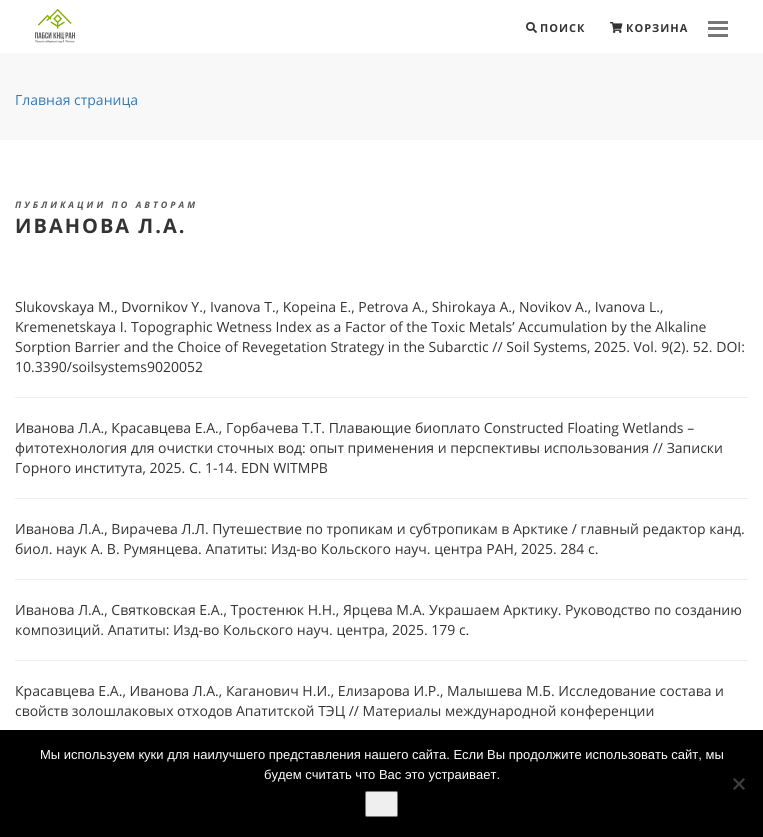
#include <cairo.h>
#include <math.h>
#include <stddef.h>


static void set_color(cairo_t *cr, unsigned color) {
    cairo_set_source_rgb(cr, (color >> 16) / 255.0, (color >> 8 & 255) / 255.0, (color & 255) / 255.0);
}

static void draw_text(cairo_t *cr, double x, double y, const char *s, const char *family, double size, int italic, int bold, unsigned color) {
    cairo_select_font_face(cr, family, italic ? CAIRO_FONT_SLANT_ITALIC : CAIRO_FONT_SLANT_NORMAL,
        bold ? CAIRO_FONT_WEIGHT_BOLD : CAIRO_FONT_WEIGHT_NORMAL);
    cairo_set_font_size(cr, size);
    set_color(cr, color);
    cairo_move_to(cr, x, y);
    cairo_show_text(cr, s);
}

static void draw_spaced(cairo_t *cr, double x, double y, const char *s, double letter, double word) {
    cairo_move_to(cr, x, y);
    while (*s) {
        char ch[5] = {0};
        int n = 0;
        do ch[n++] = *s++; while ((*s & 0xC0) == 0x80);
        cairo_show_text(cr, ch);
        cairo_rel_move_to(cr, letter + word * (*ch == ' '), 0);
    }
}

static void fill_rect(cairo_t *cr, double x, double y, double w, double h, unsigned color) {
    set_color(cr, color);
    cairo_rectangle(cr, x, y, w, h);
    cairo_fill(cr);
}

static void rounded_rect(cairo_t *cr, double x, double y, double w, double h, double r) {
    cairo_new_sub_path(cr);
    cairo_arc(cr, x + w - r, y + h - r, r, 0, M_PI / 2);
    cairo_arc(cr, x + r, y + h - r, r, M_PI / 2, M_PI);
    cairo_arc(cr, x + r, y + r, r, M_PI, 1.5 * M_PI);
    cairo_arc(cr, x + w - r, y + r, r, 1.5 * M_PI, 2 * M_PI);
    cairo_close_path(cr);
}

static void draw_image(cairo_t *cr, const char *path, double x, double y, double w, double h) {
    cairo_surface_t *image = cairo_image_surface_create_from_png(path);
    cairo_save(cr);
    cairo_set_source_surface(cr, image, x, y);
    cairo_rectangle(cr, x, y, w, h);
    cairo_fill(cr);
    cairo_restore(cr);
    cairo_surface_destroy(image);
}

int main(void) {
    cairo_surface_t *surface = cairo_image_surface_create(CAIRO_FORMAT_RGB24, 763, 837);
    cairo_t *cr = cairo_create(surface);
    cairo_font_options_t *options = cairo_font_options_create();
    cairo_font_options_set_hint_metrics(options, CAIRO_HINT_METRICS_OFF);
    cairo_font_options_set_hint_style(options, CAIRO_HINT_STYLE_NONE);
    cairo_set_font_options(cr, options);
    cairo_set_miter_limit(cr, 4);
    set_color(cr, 0xFFFFFF);
    cairo_paint(cr);
    draw_image(cr, "assets/img1.png", 35, 9, 40, 34);
    draw_image(cr, "assets/img2.png", 526, 22, 11, 11);
    cairo_select_font_face(cr, "Open Sans", CAIRO_FONT_SLANT_NORMAL, CAIRO_FONT_WEIGHT_BOLD);
    cairo_set_font_size(cr, 11);
    set_color(cr, 0x333333);
    draw_spaced(cr, 540, 32, "ПОИСК", 1, 0);
    draw_image(cr, "assets/img3.png", 610, 22, 13, 11);
    draw_spaced(cr, 626, 32, "КОРЗИНА", 1, 0);
    fill_rect(cr, 708, 21, 20, 3, 0x777777);
    fill_rect(cr, 708, 27, 20, 3, 0x777777);
    fill_rect(cr, 708, 34, 20, 3, 0x777777);
    fill_rect(cr, 0, 53, 763, 87, 0xF8F8F8);
    draw_text(cr, 15, 105, "Главная страница", "Open Sans", 14, 0, 0, 0x337AB7);
    cairo_select_font_face(cr, "Open Sans", CAIRO_FONT_SLANT_ITALIC, CAIRO_FONT_WEIGHT_BOLD);
    cairo_set_font_size(cr, 9);
    set_color(cr, 0x585858);
    draw_spaced(cr, 15, 208, "ПУБЛИКАЦИИ ПО АВТОРАМ", 3, 0);
    cairo_select_font_face(cr, "Open Sans", CAIRO_FONT_SLANT_NORMAL, CAIRO_FONT_WEIGHT_BOLD);
    cairo_set_font_size(cr, 20);
    set_color(cr, 0x333333);
    draw_spaced(cr, 15, 233, "ИВАНОВА Л.А.", 2, 0);
    fill_rect(cr, 15, 397, 733, 1, 0xEEEEEE);
    draw_text(cr, 15, 312, "Slukovskaya M., Dvornikov Y., Ivanova T., Kopeina E., Petrova A., Shirokaya A., Novikov A., Ivanova L.,", "Open Sans", 14, 0, 0, 0x333333);
    draw_text(cr, 15, 332, "Kremenetskaya I. Topographic Wetness Index as a Factor of the Toxic Metals’ Accumulation by the Alkaline", "Open Sans", 14, 0, 0, 0x333333);
    draw_text(cr, 15, 352, "Sorption Barrier and the Choice of Revegetation Strategy in the Subarctic // Soil Systems, 2025. Vol. 9(2). 52. DOI:", "Open Sans", 14, 0, 0, 0x333333);
    draw_text(cr, 15, 372, "10.3390/soilsystems9020052", "Open Sans", 14, 0, 0, 0x333333);
    fill_rect(cr, 15, 498, 733, 1, 0xEEEEEE);
    draw_text(cr, 15, 433, "Иванова Л.А., Красавцева Е.А., Горбачева Т.Т. Плавающие биоплато Constructed Floating Wetlands –", "Open Sans", 14, 0, 0, 0x333333);
    draw_text(cr, 15, 453, "фитотехнология для очистки сточных вод: опыт применения и перспективы использования // Записки", "Open Sans", 14, 0, 0, 0x333333);
    draw_text(cr, 15, 473, "Горного института, 2025. С. 1-14. EDN WITMPB", "Open Sans", 14, 0, 0, 0x333333);
    fill_rect(cr, 15, 579, 733, 1, 0xEEEEEE);
    draw_text(cr, 15, 534, "Иванова Л.А., Вирачева Л.Л. Путешествие по тропикам и субтропикам в Арктике / главный редактор канд.", "Open Sans", 14, 0, 0, 0x333333);
    draw_text(cr, 15, 554, "биол. наук А. В. Румянцева. Апатиты: Изд-во Кольского науч. центра РАН, 2025. 284 с.", "Open Sans", 14, 0, 0, 0x333333);
    fill_rect(cr, 15, 660, 733, 1, 0xEEEEEE);
    draw_text(cr, 15, 615, "Иванова Л.А., Святковская Е.А., Тростенюк Н.Н., Ярцева М.А. Украшаем Арктику. Руководство по созданию", "Open Sans", 14, 0, 0, 0x333333);
    draw_text(cr, 15, 635, "композиций. Апатиты: Изд-во Кольского науч. центра, 2025. 179 с.", "Open Sans", 14, 0, 0, 0x333333);
    draw_text(cr, 15, 696, "Красавцева Е.А., Иванова Л.А., Каганович Н.И., Елизарова И.Р., Малышева М.Б. Исследование состава и", "Open Sans", 14, 0, 0, 0x333333);
    draw_text(cr, 15, 716, "свойств золошлаковых отходов Апатитской ТЭЦ // Материалы международной конференции", "Open Sans", 14, 0, 0, 0x333333);
    fill_rect(cr, 0, 730, 763, 107, 0x000000);
    draw_text(cr, 40, 759, "Мы используем куки для наилучшего представления нашего сайта. Если Вы продолжите использовать сайт, мы", "Liberation Sans", 13, 0, 0, 0xFFFFFF);
    draw_text(cr, 264, 779, "будем считать что Вас это устраивает.", "Liberation Sans", 13, 0, 0, 0xFFFFFF);
    set_color(cr, 0x404040);
    cairo_new_path(cr);
    cairo_move_to(cr, 743.5, 778);
    cairo_line_to(cr, 745, 779.5);
    cairo_line_to(cr, 734.5, 790);
    cairo_line_to(cr, 733, 788.5);
    cairo_close_path(cr);
    cairo_fill(cr);
    cairo_new_path(cr);
    cairo_move_to(cr, 733, 779.5);
    cairo_line_to(cr, 734.5, 778);
    cairo_line_to(cr, 745, 788.5);
    cairo_line_to(cr, 743.5, 790);
    cairo_close_path(cr);
    cairo_fill(cr);
    set_color(cr, 0xEFEFEF);
    rounded_rect(cr, 365.5, 791.5, 32, 25, 1.5);
    cairo_fill_preserve(cr);
    set_color(cr, 0x767676);
    cairo_set_line_width(cr, 1);
    cairo_stroke(cr);
    cairo_surface_write_to_png(surface, "output.png");
    cairo_font_options_destroy(options);
    cairo_destroy(cr);
    cairo_surface_destroy(surface);
    return 0;
}
